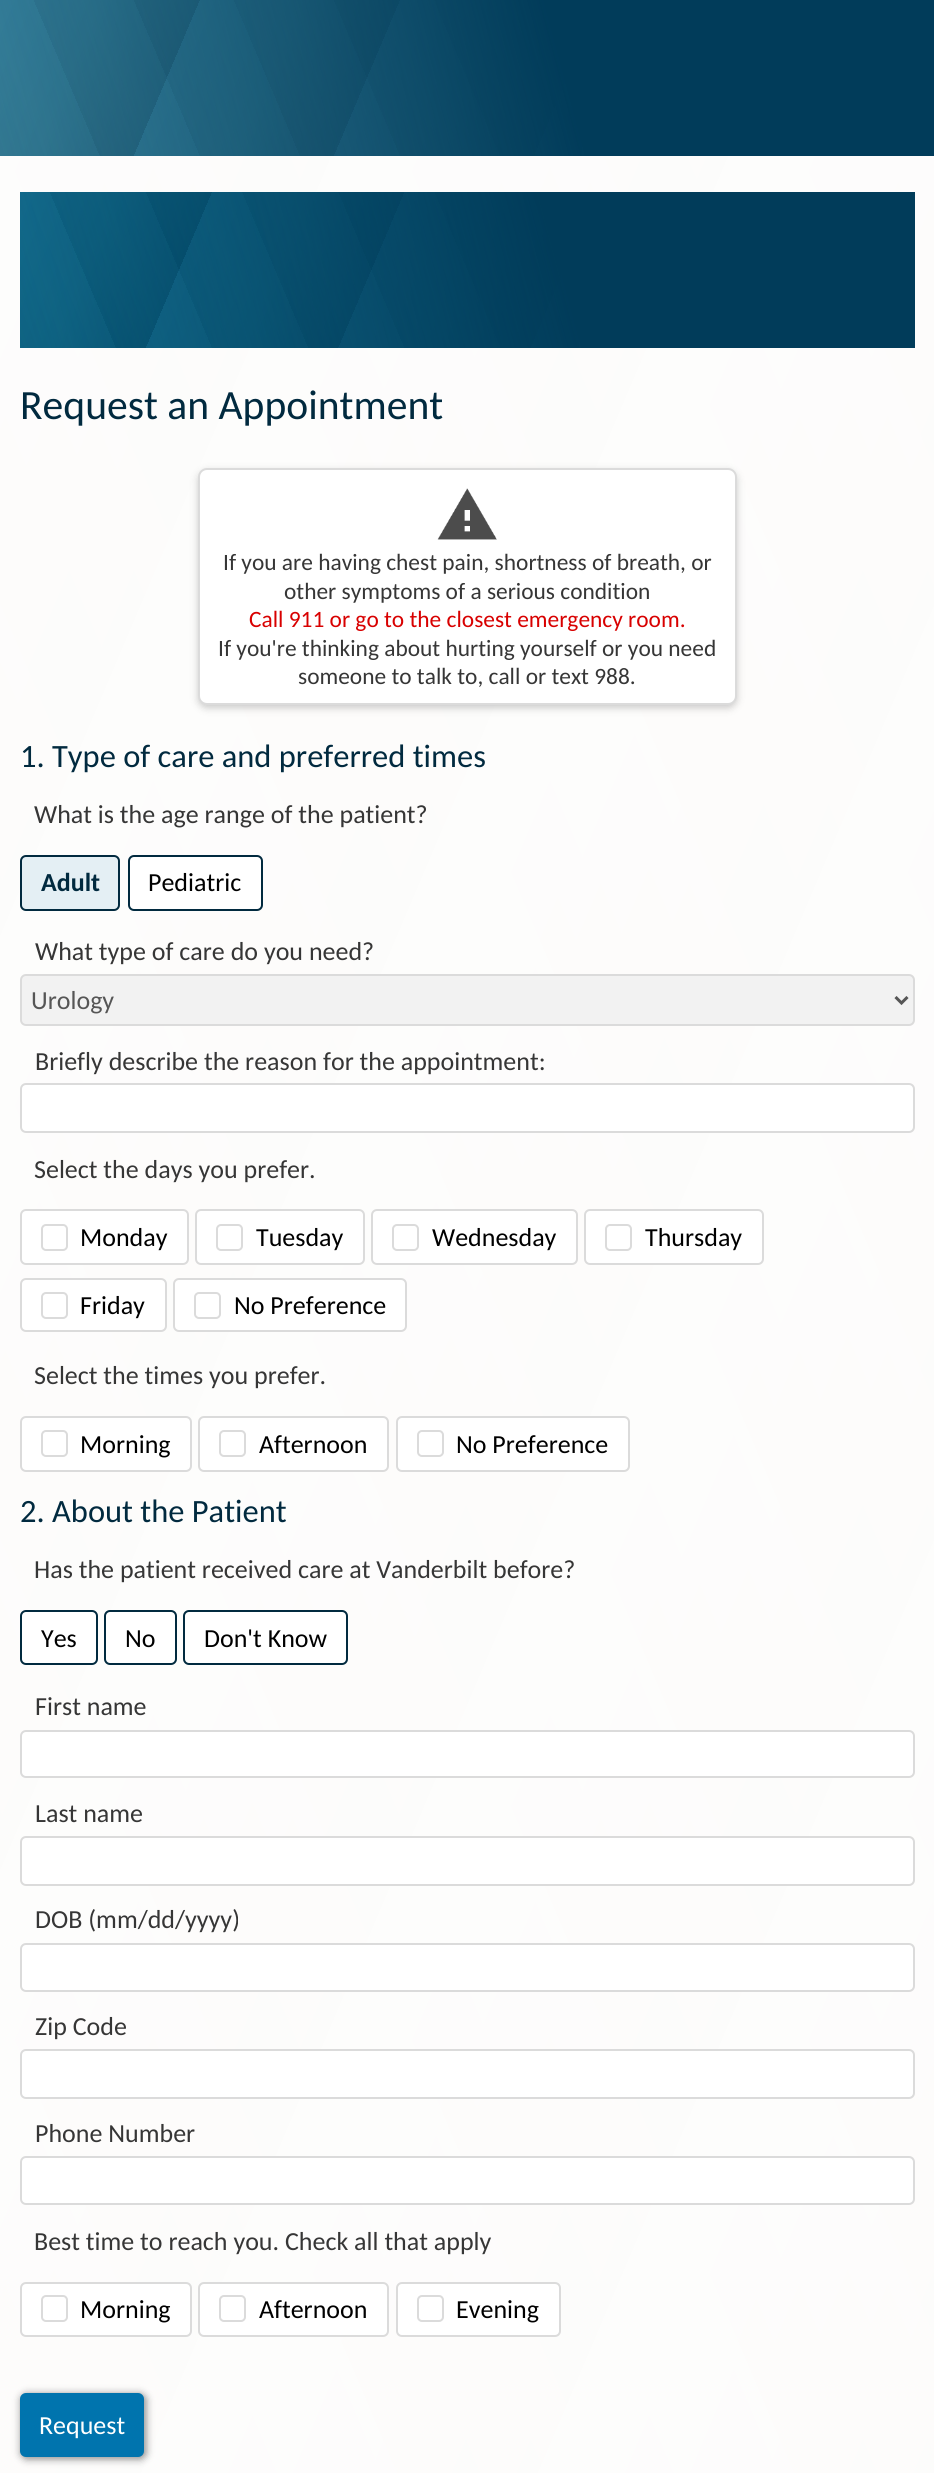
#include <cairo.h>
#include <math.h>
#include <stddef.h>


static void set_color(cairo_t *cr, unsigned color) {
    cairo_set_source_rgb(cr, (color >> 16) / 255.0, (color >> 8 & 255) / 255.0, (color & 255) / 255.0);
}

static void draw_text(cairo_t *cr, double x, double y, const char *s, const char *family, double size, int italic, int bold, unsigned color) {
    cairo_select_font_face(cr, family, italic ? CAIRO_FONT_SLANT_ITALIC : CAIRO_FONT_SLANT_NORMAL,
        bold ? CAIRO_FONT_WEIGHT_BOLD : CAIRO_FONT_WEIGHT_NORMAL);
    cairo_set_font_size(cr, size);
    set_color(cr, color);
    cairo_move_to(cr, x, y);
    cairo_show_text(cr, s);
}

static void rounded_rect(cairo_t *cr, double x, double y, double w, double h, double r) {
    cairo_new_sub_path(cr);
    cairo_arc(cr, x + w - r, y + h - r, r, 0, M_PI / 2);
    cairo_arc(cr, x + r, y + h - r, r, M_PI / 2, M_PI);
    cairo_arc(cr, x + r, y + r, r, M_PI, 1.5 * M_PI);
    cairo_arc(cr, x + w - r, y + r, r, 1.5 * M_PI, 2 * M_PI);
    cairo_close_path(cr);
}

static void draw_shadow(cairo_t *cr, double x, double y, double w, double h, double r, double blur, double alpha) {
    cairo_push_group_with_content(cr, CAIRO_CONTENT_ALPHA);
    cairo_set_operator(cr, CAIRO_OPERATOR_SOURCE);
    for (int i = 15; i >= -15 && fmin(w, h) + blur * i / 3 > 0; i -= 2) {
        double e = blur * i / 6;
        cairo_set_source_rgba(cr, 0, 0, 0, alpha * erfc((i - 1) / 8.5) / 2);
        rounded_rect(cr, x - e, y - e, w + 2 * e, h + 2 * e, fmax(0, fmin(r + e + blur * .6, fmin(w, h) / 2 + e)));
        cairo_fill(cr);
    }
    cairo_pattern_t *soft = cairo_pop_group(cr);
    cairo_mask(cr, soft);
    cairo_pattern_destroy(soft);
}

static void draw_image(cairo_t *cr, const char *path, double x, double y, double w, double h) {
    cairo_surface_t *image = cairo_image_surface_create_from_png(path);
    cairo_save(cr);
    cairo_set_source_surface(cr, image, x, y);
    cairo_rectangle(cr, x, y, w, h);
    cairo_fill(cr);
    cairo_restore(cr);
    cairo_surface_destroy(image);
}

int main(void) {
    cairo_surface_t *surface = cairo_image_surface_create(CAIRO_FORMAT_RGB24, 934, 2473);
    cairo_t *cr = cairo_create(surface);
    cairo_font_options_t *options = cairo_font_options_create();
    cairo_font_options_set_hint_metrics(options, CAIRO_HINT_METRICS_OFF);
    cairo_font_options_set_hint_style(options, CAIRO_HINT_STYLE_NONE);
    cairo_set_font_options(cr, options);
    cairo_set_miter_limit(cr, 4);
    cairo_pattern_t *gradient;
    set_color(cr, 0xFFFFFF);
    cairo_paint(cr);
    gradient = cairo_pattern_create_linear(-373, 1594, 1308, 880);
    cairo_pattern_add_color_stop_rgba(gradient, 0, 0.937, 0.929, 0.902, 1);
    cairo_pattern_add_color_stop_rgba(gradient, 0.05, 0.949, 0.937, 0.918, 1);
    cairo_pattern_add_color_stop_rgba(gradient, 0.1, 0.961, 0.949, 0.941, 1);
    cairo_pattern_add_color_stop_rgba(gradient, 0.1, 0.937, 0.929, 0.902, 1);
    cairo_pattern_add_color_stop_rgba(gradient, 0.15, 0.949, 0.937, 0.918, 1);
    cairo_pattern_add_color_stop_rgba(gradient, 0.2, 0.961, 0.949, 0.941, 1);
    cairo_pattern_add_color_stop_rgba(gradient, 0.2, 0.937, 0.929, 0.902, 1);
    cairo_pattern_add_color_stop_rgba(gradient, 0.25, 0.949, 0.937, 0.918, 1);
    cairo_pattern_add_color_stop_rgba(gradient, 0.3, 0.961, 0.949, 0.941, 1);
    cairo_pattern_add_color_stop_rgba(gradient, 0.3, 0.937, 0.929, 0.902, 1);
    cairo_pattern_add_color_stop_rgba(gradient, 0.35, 0.949, 0.937, 0.918, 1);
    cairo_pattern_add_color_stop_rgba(gradient, 0.4, 0.961, 0.949, 0.941, 1);
    cairo_pattern_add_color_stop_rgba(gradient, 0.4, 0.937, 0.929, 0.902, 1);
    cairo_pattern_add_color_stop_rgba(gradient, 0.45, 0.949, 0.937, 0.918, 1);
    cairo_pattern_add_color_stop_rgba(gradient, 0.5, 0.961, 0.949, 0.941, 1);
    cairo_pattern_add_color_stop_rgba(gradient, 0.5, 0.937, 0.929, 0.902, 1);
    cairo_pattern_add_color_stop_rgba(gradient, 0.55, 0.949, 0.937, 0.918, 1);
    cairo_pattern_add_color_stop_rgba(gradient, 0.6, 0.961, 0.949, 0.941, 1);
    cairo_pattern_add_color_stop_rgba(gradient, 0.6, 0.937, 0.929, 0.902, 1);
    cairo_pattern_add_color_stop_rgba(gradient, 0.65, 0.949, 0.937, 0.918, 1);
    cairo_pattern_add_color_stop_rgba(gradient, 0.7, 0.961, 0.949, 0.941, 1);
    cairo_pattern_add_color_stop_rgba(gradient, 0.7, 0.937, 0.929, 0.902, 1);
    cairo_pattern_add_color_stop_rgba(gradient, 0.75, 0.949, 0.937, 0.918, 1);
    cairo_pattern_add_color_stop_rgba(gradient, 0.8, 0.961, 0.949, 0.941, 1);
    cairo_pattern_add_color_stop_rgba(gradient, 0.8, 0.937, 0.929, 0.902, 1);
    cairo_pattern_add_color_stop_rgba(gradient, 0.85, 0.949, 0.937, 0.918, 1);
    cairo_pattern_add_color_stop_rgba(gradient, 0.9, 0.961, 0.949, 0.941, 1);
    cairo_pattern_add_color_stop_rgba(gradient, 0.9, 0.937, 0.929, 0.902, 1);
    cairo_pattern_add_color_stop_rgba(gradient, 0.95, 0.949, 0.937, 0.918, 1);
    cairo_pattern_add_color_stop_rgba(gradient, 1, 0.961, 0.949, 0.941, 1);
    cairo_set_source(cr, gradient);
    cairo_pattern_destroy(gradient);
    cairo_rectangle(cr, 0, 0, 934, 2473);
    cairo_fill(cr);
    gradient = cairo_pattern_create_linear(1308, 1594, -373, 880);
    cairo_pattern_add_color_stop_rgba(gradient, 0, 0.89, 0.882, 0.835, 0.6);
    cairo_pattern_add_color_stop_rgba(gradient, 0.1, 0.91, 0.894, 0.863, 0.6);
    cairo_pattern_add_color_stop_rgba(gradient, 0.2, 0.929, 0.914, 0.898, 0.6);
    cairo_pattern_add_color_stop_rgba(gradient, 0.2, 0.89, 0.882, 0.835, 0.6);
    cairo_pattern_add_color_stop_rgba(gradient, 0.3, 0.91, 0.894, 0.863, 0.6);
    cairo_pattern_add_color_stop_rgba(gradient, 0.4, 0.929, 0.914, 0.898, 0.6);
    cairo_pattern_add_color_stop_rgba(gradient, 0.4, 0.89, 0.882, 0.835, 0.6);
    cairo_pattern_add_color_stop_rgba(gradient, 0.5, 0.91, 0.894, 0.863, 0.6);
    cairo_pattern_add_color_stop_rgba(gradient, 0.6, 0.929, 0.914, 0.898, 0.6);
    cairo_pattern_add_color_stop_rgba(gradient, 0.6, 0.89, 0.882, 0.835, 0.6);
    cairo_pattern_add_color_stop_rgba(gradient, 0.7, 0.91, 0.894, 0.863, 0.6);
    cairo_pattern_add_color_stop_rgba(gradient, 0.8, 0.929, 0.914, 0.898, 0.6);
    cairo_pattern_add_color_stop_rgba(gradient, 0.8, 0.89, 0.882, 0.835, 0.6);
    cairo_pattern_add_color_stop_rgba(gradient, 0.9, 0.91, 0.894, 0.863, 0.6);
    cairo_pattern_add_color_stop_rgba(gradient, 1, 0.929, 0.914, 0.898, 0.6);
    cairo_set_source(cr, gradient);
    cairo_pattern_destroy(gradient);
    cairo_rectangle(cr, 0, 0, 934, 2473);
    cairo_fill(cr);
    gradient = cairo_pattern_create_linear(43, 258, 891, -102);
    cairo_pattern_add_color_stop_rgba(gradient, 0, 0.02, 0.314, 0.435, 0.6);
    cairo_pattern_add_color_stop_rgba(gradient, 0.05, 0.059, 0.392, 0.514, 0.6);
    cairo_pattern_add_color_stop_rgba(gradient, 0.1, 0.078, 0.427, 0.561, 0.6);
    cairo_pattern_add_color_stop_rgba(gradient, 0.1, 0.02, 0.314, 0.435, 0.6);
    cairo_pattern_add_color_stop_rgba(gradient, 0.15, 0.059, 0.392, 0.514, 0.6);
    cairo_pattern_add_color_stop_rgba(gradient, 0.2, 0.078, 0.427, 0.561, 0.6);
    cairo_pattern_add_color_stop_rgba(gradient, 0.2, 0.02, 0.314, 0.435, 0.6);
    cairo_pattern_add_color_stop_rgba(gradient, 0.25, 0.059, 0.392, 0.514, 0.6);
    cairo_pattern_add_color_stop_rgba(gradient, 0.3, 0.078, 0.427, 0.561, 0.6);
    cairo_pattern_add_color_stop_rgba(gradient, 0.3, 0.02, 0.314, 0.435, 0.6);
    cairo_pattern_add_color_stop_rgba(gradient, 0.35, 0.059, 0.392, 0.514, 0.6);
    cairo_pattern_add_color_stop_rgba(gradient, 0.4, 0.078, 0.427, 0.561, 0.6);
    cairo_pattern_add_color_stop_rgba(gradient, 0.4, 0.02, 0.314, 0.435, 0.6);
    cairo_pattern_add_color_stop_rgba(gradient, 0.45, 0.059, 0.392, 0.514, 0.6);
    cairo_pattern_add_color_stop_rgba(gradient, 0.5, 0.078, 0.427, 0.561, 0.6);
    cairo_pattern_add_color_stop_rgba(gradient, 0.5, 0.02, 0.314, 0.435, 0.6);
    cairo_pattern_add_color_stop_rgba(gradient, 0.55, 0.059, 0.392, 0.514, 0.6);
    cairo_pattern_add_color_stop_rgba(gradient, 0.6, 0.078, 0.427, 0.561, 0.6);
    cairo_pattern_add_color_stop_rgba(gradient, 0.6, 0.02, 0.314, 0.435, 0.6);
    cairo_pattern_add_color_stop_rgba(gradient, 0.65, 0.059, 0.392, 0.514, 0.6);
    cairo_pattern_add_color_stop_rgba(gradient, 0.7, 0.078, 0.427, 0.561, 0.6);
    cairo_pattern_add_color_stop_rgba(gradient, 0.7, 0.02, 0.314, 0.435, 0.6);
    cairo_pattern_add_color_stop_rgba(gradient, 0.75, 0.059, 0.392, 0.514, 0.6);
    cairo_pattern_add_color_stop_rgba(gradient, 0.8, 0.078, 0.427, 0.561, 0.6);
    cairo_pattern_add_color_stop_rgba(gradient, 0.8, 0.02, 0.314, 0.435, 0.6);
    cairo_pattern_add_color_stop_rgba(gradient, 0.85, 0.059, 0.392, 0.514, 0.6);
    cairo_pattern_add_color_stop_rgba(gradient, 0.9, 0.078, 0.427, 0.561, 0.6);
    cairo_pattern_add_color_stop_rgba(gradient, 0.9, 0.02, 0.314, 0.435, 0.6);
    cairo_pattern_add_color_stop_rgba(gradient, 0.95, 0.059, 0.392, 0.514, 0.6);
    cairo_pattern_add_color_stop_rgba(gradient, 1, 0.078, 0.427, 0.561, 0.6);
    cairo_set_source(cr, gradient);
    cairo_pattern_destroy(gradient);
    cairo_rectangle(cr, 0, 0, 582, 156);
    cairo_fill(cr);
    gradient = cairo_pattern_create_linear(891, 258, 43, -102);
    cairo_pattern_add_color_stop_rgba(gradient, 0, 0.02, 0.314, 0.435, 0.6);
    cairo_pattern_add_color_stop_rgba(gradient, 0.1, 0.059, 0.392, 0.514, 0.6);
    cairo_pattern_add_color_stop_rgba(gradient, 0.2, 0.078, 0.427, 0.561, 0.6);
    cairo_pattern_add_color_stop_rgba(gradient, 0.2, 0.02, 0.314, 0.435, 0.6);
    cairo_pattern_add_color_stop_rgba(gradient, 0.3, 0.059, 0.392, 0.514, 0.6);
    cairo_pattern_add_color_stop_rgba(gradient, 0.4, 0.078, 0.427, 0.561, 0.6);
    cairo_pattern_add_color_stop_rgba(gradient, 0.4, 0.02, 0.314, 0.435, 0.6);
    cairo_pattern_add_color_stop_rgba(gradient, 0.5, 0.059, 0.392, 0.514, 0.6);
    cairo_pattern_add_color_stop_rgba(gradient, 0.6, 0.078, 0.427, 0.561, 0.6);
    cairo_pattern_add_color_stop_rgba(gradient, 0.6, 0.02, 0.314, 0.435, 0.6);
    cairo_pattern_add_color_stop_rgba(gradient, 0.7, 0.059, 0.392, 0.514, 0.6);
    cairo_pattern_add_color_stop_rgba(gradient, 0.8, 0.078, 0.427, 0.561, 0.6);
    cairo_pattern_add_color_stop_rgba(gradient, 0.8, 0.02, 0.314, 0.435, 0.6);
    cairo_pattern_add_color_stop_rgba(gradient, 0.9, 0.059, 0.392, 0.514, 0.6);
    cairo_pattern_add_color_stop_rgba(gradient, 1, 0.078, 0.427, 0.561, 0.6);
    cairo_set_source(cr, gradient);
    cairo_pattern_destroy(gradient);
    cairo_rectangle(cr, 0, 0, 582, 156);
    cairo_fill(cr);
    gradient = cairo_pattern_create_linear(923, -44, 12, 200);
    cairo_pattern_add_color_stop_rgba(gradient, 0.4, 0.004, 0.235, 0.353, 1);
    cairo_pattern_add_color_stop_rgba(gradient, 1, 0.004, 0.235, 0.353, 0);
    cairo_set_source(cr, gradient);
    cairo_pattern_destroy(gradient);
    cairo_rectangle(cr, 0, 0, 934, 156);
    cairo_fill(cr);
    cairo_set_source_rgba(cr, 1, 1, 1, 0.88);
    cairo_rectangle(cr, 0, 156, 934, 2317);
    cairo_fill(cr);
    gradient = cairo_pattern_create_linear(60, 443, 875, 97);
    cairo_pattern_add_color_stop_rgba(gradient, 0, 0.043, 0.361, 0.486, 1);
    cairo_pattern_add_color_stop_rgba(gradient, 0.05, 0.067, 0.408, 0.533, 1);
    cairo_pattern_add_color_stop_rgba(gradient, 0.1, 0.078, 0.427, 0.561, 1);
    cairo_pattern_add_color_stop_rgba(gradient, 0.1, 0.043, 0.361, 0.486, 1);
    cairo_pattern_add_color_stop_rgba(gradient, 0.15, 0.067, 0.408, 0.533, 1);
    cairo_pattern_add_color_stop_rgba(gradient, 0.2, 0.078, 0.427, 0.561, 1);
    cairo_pattern_add_color_stop_rgba(gradient, 0.2, 0.043, 0.361, 0.486, 1);
    cairo_pattern_add_color_stop_rgba(gradient, 0.25, 0.067, 0.408, 0.533, 1);
    cairo_pattern_add_color_stop_rgba(gradient, 0.3, 0.078, 0.427, 0.561, 1);
    cairo_pattern_add_color_stop_rgba(gradient, 0.3, 0.043, 0.361, 0.486, 1);
    cairo_pattern_add_color_stop_rgba(gradient, 0.35, 0.067, 0.408, 0.533, 1);
    cairo_pattern_add_color_stop_rgba(gradient, 0.4, 0.078, 0.427, 0.561, 1);
    cairo_pattern_add_color_stop_rgba(gradient, 0.4, 0.043, 0.361, 0.486, 1);
    cairo_pattern_add_color_stop_rgba(gradient, 0.45, 0.067, 0.408, 0.533, 1);
    cairo_pattern_add_color_stop_rgba(gradient, 0.5, 0.078, 0.427, 0.561, 1);
    cairo_pattern_add_color_stop_rgba(gradient, 0.5, 0.043, 0.361, 0.486, 1);
    cairo_pattern_add_color_stop_rgba(gradient, 0.55, 0.067, 0.408, 0.533, 1);
    cairo_pattern_add_color_stop_rgba(gradient, 0.6, 0.078, 0.427, 0.561, 1);
    cairo_pattern_add_color_stop_rgba(gradient, 0.6, 0.043, 0.361, 0.486, 1);
    cairo_pattern_add_color_stop_rgba(gradient, 0.65, 0.067, 0.408, 0.533, 1);
    cairo_pattern_add_color_stop_rgba(gradient, 0.7, 0.078, 0.427, 0.561, 1);
    cairo_pattern_add_color_stop_rgba(gradient, 0.7, 0.043, 0.361, 0.486, 1);
    cairo_pattern_add_color_stop_rgba(gradient, 0.75, 0.067, 0.408, 0.533, 1);
    cairo_pattern_add_color_stop_rgba(gradient, 0.8, 0.078, 0.427, 0.561, 1);
    cairo_pattern_add_color_stop_rgba(gradient, 0.8, 0.043, 0.361, 0.486, 1);
    cairo_pattern_add_color_stop_rgba(gradient, 0.85, 0.067, 0.408, 0.533, 1);
    cairo_pattern_add_color_stop_rgba(gradient, 0.9, 0.078, 0.427, 0.561, 1);
    cairo_pattern_add_color_stop_rgba(gradient, 0.9, 0.043, 0.361, 0.486, 1);
    cairo_pattern_add_color_stop_rgba(gradient, 0.95, 0.067, 0.408, 0.533, 1);
    cairo_pattern_add_color_stop_rgba(gradient, 1, 0.078, 0.427, 0.561, 1);
    cairo_set_source(cr, gradient);
    cairo_pattern_destroy(gradient);
    cairo_rectangle(cr, 20, 192, 559, 156);
    cairo_fill(cr);
    gradient = cairo_pattern_create_linear(875, 443, 60, 97);
    cairo_pattern_add_color_stop_rgba(gradient, 0, 0.02, 0.314, 0.435, 0.6);
    cairo_pattern_add_color_stop_rgba(gradient, 0.1, 0.059, 0.392, 0.514, 0.6);
    cairo_pattern_add_color_stop_rgba(gradient, 0.2, 0.078, 0.427, 0.561, 0.6);
    cairo_pattern_add_color_stop_rgba(gradient, 0.2, 0.02, 0.314, 0.435, 0.6);
    cairo_pattern_add_color_stop_rgba(gradient, 0.3, 0.059, 0.392, 0.514, 0.6);
    cairo_pattern_add_color_stop_rgba(gradient, 0.4, 0.078, 0.427, 0.561, 0.6);
    cairo_pattern_add_color_stop_rgba(gradient, 0.4, 0.02, 0.314, 0.435, 0.6);
    cairo_pattern_add_color_stop_rgba(gradient, 0.5, 0.059, 0.392, 0.514, 0.6);
    cairo_pattern_add_color_stop_rgba(gradient, 0.6, 0.078, 0.427, 0.561, 0.6);
    cairo_pattern_add_color_stop_rgba(gradient, 0.6, 0.02, 0.314, 0.435, 0.6);
    cairo_pattern_add_color_stop_rgba(gradient, 0.7, 0.059, 0.392, 0.514, 0.6);
    cairo_pattern_add_color_stop_rgba(gradient, 0.8, 0.078, 0.427, 0.561, 0.6);
    cairo_pattern_add_color_stop_rgba(gradient, 0.8, 0.02, 0.314, 0.435, 0.6);
    cairo_pattern_add_color_stop_rgba(gradient, 0.9, 0.059, 0.392, 0.514, 0.6);
    cairo_pattern_add_color_stop_rgba(gradient, 1, 0.078, 0.427, 0.561, 0.6);
    cairo_set_source(cr, gradient);
    cairo_pattern_destroy(gradient);
    cairo_rectangle(cr, 20, 192, 559, 156);
    cairo_fill(cr);
    gradient = cairo_pattern_create_linear(905, 153, 30, 387);
    cairo_pattern_add_color_stop_rgba(gradient, 0.4, 0.004, 0.235, 0.353, 1);
    cairo_pattern_add_color_stop_rgba(gradient, 1, 0.004, 0.235, 0.353, 0);
    cairo_set_source(cr, gradient);
    cairo_pattern_destroy(gradient);
    cairo_rectangle(cr, 20, 192, 895, 156);
    cairo_fill(cr);
    draw_text(cr, 20, 419, "Request an Appointment", "Carlito", 41.6, 0, 0, 0x012A3F);
    set_color(cr, 0x000000);
    draw_shadow(cr, 198, 471, 539, 237, 9, 4, 0.2);
    set_color(cr, 0xFFFFFF);
    rounded_rect(cr, 199, 469, 537, 235, 8);
    cairo_fill_preserve(cr);
    set_color(cr, 0xDBDBDB);
    cairo_stroke(cr);
    draw_image(cr, "assets/img1.png", 437, 488, 60, 52);
    draw_text(cr, 223, 570, "If you are having chest pain, shortness of breath, or", "Carlito", 23.4, 0, 0, 0x363636);
    draw_text(cr, 284, 599, "other symptoms of a serious condition", "Carlito", 23.4, 0, 0, 0x363636);
    draw_text(cr, 249, 627, "Call 911 or go to the closest emergency room.", "Carlito", 23.4, 0, 0, 0xD80000);
    draw_text(cr, 218, 656, "If you're thinking about hurting yourself or you need", "Carlito", 23.4, 0, 0, 0x363636);
    draw_text(cr, 298, 684, "someone to talk to, call or text 988.", "Carlito", 23.4, 0, 0, 0x363636);
    draw_text(cr, 20, 767, "1. Type of care and preferred times", "Carlito", 32.5, 0, 0, 0x012A3F);
    draw_text(cr, 34, 823, "What is the age range of the patient?", "Carlito", 26, 0, 0, 0x363636);
    set_color(cr, 0xE4EFF4);
    rounded_rect(cr, 21, 856, 98, 54, 5);
    cairo_fill_preserve(cr);
    set_color(cr, 0x012A3F);
    cairo_stroke(cr);
    draw_text(cr, 41, 891, "Adult", "Carlito", 26, 0, 1, 0x012A3F);
    set_color(cr, 0xFFFFFF);
    rounded_rect(cr, 129, 856, 133, 54, 5);
    cairo_fill_preserve(cr);
    set_color(cr, 0x012A3F);
    cairo_stroke(cr);
    draw_text(cr, 148, 891, "Pediatric", "Carlito", 26, 0, 0, 0x000000);
    draw_text(cr, 35, 960, "What type of care do you need?", "Carlito", 26, 0, 0, 0x363636);
    set_color(cr, 0xF2F2F2);
    rounded_rect(cr, 21, 975, 893, 50, 5);
    cairo_fill_preserve(cr);
    set_color(cr, 0xDBDBDB);
    cairo_stroke(cr);
    cairo_new_path(cr);
    cairo_move_to(cr, 895.5, 997);
    cairo_line_to(cr, 901.5, 1003);
    cairo_line_to(cr, 907.5, 997);
    set_color(cr, 0x565656);
    cairo_set_line_width(cr, 3);
    cairo_stroke(cr);
    draw_text(cr, 31, 1009, "Urology", "Carlito", 26, 0, 0, 0x565656);
    draw_text(cr, 35, 1070, "Briefly describe the reason for the appointment:", "Carlito", 26, 0, 0, 0x363636);
    set_color(cr, 0xFFFFFF);
    rounded_rect(cr, 21, 1084, 893, 48, 5);
    cairo_fill_preserve(cr);
    set_color(cr, 0xDBDBDB);
    cairo_set_line_width(cr, 2);
    cairo_stroke(cr);
    draw_text(cr, 34, 1178, "Select the days you prefer.", "Carlito", 26, 0, 0, 0x363636);
    set_color(cr, 0xFFFFFF);
    rounded_rect(cr, 21, 1210, 167, 54, 5);
    cairo_fill_preserve(cr);
    set_color(cr, 0xDBDBDB);
    cairo_stroke(cr);
    rounded_rect(cr, 42, 1225, 25, 25, 4);
    cairo_stroke(cr);
    draw_text(cr, 80, 1246, "Monday", "Carlito", 26, 0, 0, 0x000000);
    set_color(cr, 0xFFFFFF);
    rounded_rect(cr, 196, 1210, 168, 54, 5);
    cairo_fill_preserve(cr);
    set_color(cr, 0xDBDBDB);
    cairo_stroke(cr);
    rounded_rect(cr, 217, 1225, 25, 25, 4);
    cairo_stroke(cr);
    draw_text(cr, 256, 1246, "Tuesday", "Carlito", 26, 0, 0, 0x000000);
    set_color(cr, 0xFFFFFF);
    rounded_rect(cr, 372, 1210, 205, 54, 5);
    cairo_fill_preserve(cr);
    set_color(cr, 0xDBDBDB);
    cairo_stroke(cr);
    rounded_rect(cr, 393, 1225, 25, 25, 4);
    cairo_stroke(cr);
    draw_text(cr, 432, 1246, "Wednesday", "Carlito", 26, 0, 0, 0x000000);
    set_color(cr, 0xFFFFFF);
    rounded_rect(cr, 585, 1210, 178, 54, 5);
    cairo_fill_preserve(cr);
    set_color(cr, 0xDBDBDB);
    cairo_stroke(cr);
    rounded_rect(cr, 606, 1225, 25, 25, 4);
    cairo_stroke(cr);
    draw_text(cr, 645, 1246, "Thursday", "Carlito", 26, 0, 0, 0x000000);
    set_color(cr, 0xFFFFFF);
    rounded_rect(cr, 21, 1279, 145, 52, 5);
    cairo_fill_preserve(cr);
    set_color(cr, 0xDBDBDB);
    cairo_stroke(cr);
    rounded_rect(cr, 42, 1293, 25, 25, 4);
    cairo_stroke(cr);
    draw_text(cr, 80, 1314, "Friday", "Carlito", 26, 0, 0, 0x000000);
    set_color(cr, 0xFFFFFF);
    rounded_rect(cr, 174, 1279, 232, 52, 5);
    cairo_fill_preserve(cr);
    set_color(cr, 0xDBDBDB);
    cairo_stroke(cr);
    rounded_rect(cr, 195, 1293, 25, 25, 4);
    cairo_stroke(cr);
    draw_text(cr, 234, 1314, "No Preference", "Carlito", 26, 0, 0, 0x000000);
    draw_text(cr, 34, 1384, "Select the times you prefer.", "Carlito", 26, 0, 0, 0x363636);
    set_color(cr, 0xFFFFFF);
    rounded_rect(cr, 21, 1417, 170, 54, 5);
    cairo_fill_preserve(cr);
    set_color(cr, 0xDBDBDB);
    cairo_stroke(cr);
    rounded_rect(cr, 42, 1431, 25, 25, 4);
    cairo_stroke(cr);
    draw_text(cr, 80, 1453, "Morning", "Carlito", 26, 0, 0, 0x000000);
    set_color(cr, 0xFFFFFF);
    rounded_rect(cr, 199, 1417, 189, 54, 5);
    cairo_fill_preserve(cr);
    set_color(cr, 0xDBDBDB);
    cairo_stroke(cr);
    rounded_rect(cr, 220, 1431, 25, 25, 4);
    cairo_stroke(cr);
    draw_text(cr, 259, 1453, "Afternoon", "Carlito", 26, 0, 0, 0x000000);
    set_color(cr, 0xFFFFFF);
    rounded_rect(cr, 397, 1417, 232, 54, 5);
    cairo_fill_preserve(cr);
    set_color(cr, 0xDBDBDB);
    cairo_stroke(cr);
    rounded_rect(cr, 418, 1431, 25, 25, 4);
    cairo_stroke(cr);
    draw_text(cr, 456, 1453, "No Preference", "Carlito", 26, 0, 0, 0x000000);
    draw_text(cr, 20, 1522, "2. About the Patient", "Carlito", 32.5, 0, 0, 0x012A3F);
    draw_text(cr, 34, 1578, "Has the patient received care at Vanderbilt before?", "Carlito", 26, 0, 0, 0x363636);
    set_color(cr, 0xFFFFFF);
    rounded_rect(cr, 21, 1611, 76, 53, 5);
    cairo_fill_preserve(cr);
    set_color(cr, 0x012A3F);
    cairo_stroke(cr);
    draw_text(cr, 41, 1647, "Yes", "Carlito", 26, 0, 0, 0x000000);
    set_color(cr, 0xFFFFFF);
    rounded_rect(cr, 105, 1611, 71, 53, 5);
    cairo_fill_preserve(cr);
    set_color(cr, 0x012A3F);
    cairo_stroke(cr);
    draw_text(cr, 125, 1647, "No", "Carlito", 26, 0, 0, 0x000000);
    set_color(cr, 0xFFFFFF);
    rounded_rect(cr, 184, 1611, 163, 53, 5);
    cairo_fill_preserve(cr);
    set_color(cr, 0x012A3F);
    cairo_stroke(cr);
    draw_text(cr, 204, 1647, "Don't Know", "Carlito", 26, 0, 0, 0x000000);
    draw_text(cr, 35, 1715, "First name", "Carlito", 26, 0, 0, 0x363636);
    set_color(cr, 0xFFFFFF);
    rounded_rect(cr, 21, 1731, 893, 46, 5);
    cairo_fill_preserve(cr);
    set_color(cr, 0xDBDBDB);
    cairo_stroke(cr);
    draw_text(cr, 35, 1822, "Last name", "Carlito", 26, 0, 0, 0x363636);
    set_color(cr, 0xFFFFFF);
    rounded_rect(cr, 21, 1837, 893, 48, 5);
    cairo_fill_preserve(cr);
    set_color(cr, 0xDBDBDB);
    cairo_stroke(cr);
    draw_text(cr, 35, 1928, "DOB (mm/dd/yyyy)", "Carlito", 26, 0, 0, 0x363636);
    set_color(cr, 0xFFFFFF);
    rounded_rect(cr, 21, 1944, 893, 47, 5);
    cairo_fill_preserve(cr);
    set_color(cr, 0xDBDBDB);
    cairo_stroke(cr);
    draw_text(cr, 35, 2035, "Zip Code", "Carlito", 26, 0, 0, 0x363636);
    set_color(cr, 0xFFFFFF);
    rounded_rect(cr, 21, 2050, 893, 48, 5);
    cairo_fill_preserve(cr);
    set_color(cr, 0xDBDBDB);
    cairo_stroke(cr);
    draw_text(cr, 35, 2142, "Phone Number", "Carlito", 26, 0, 0, 0x363636);
    set_color(cr, 0xFFFFFF);
    rounded_rect(cr, 21, 2157, 893, 47, 5);
    cairo_fill_preserve(cr);
    set_color(cr, 0xDBDBDB);
    cairo_stroke(cr);
    draw_text(cr, 34, 2250, "Best time to reach you. Check all that apply", "Carlito", 26, 0, 0, 0x363636);
    set_color(cr, 0xFFFFFF);
    rounded_rect(cr, 21, 2283, 170, 53, 5);
    cairo_fill_preserve(cr);
    set_color(cr, 0xDBDBDB);
    cairo_stroke(cr);
    rounded_rect(cr, 42, 2296, 25, 25, 4);
    cairo_stroke(cr);
    draw_text(cr, 80, 2318, "Morning", "Carlito", 26, 0, 0, 0x000000);
    set_color(cr, 0xFFFFFF);
    rounded_rect(cr, 199, 2283, 189, 53, 5);
    cairo_fill_preserve(cr);
    set_color(cr, 0xDBDBDB);
    cairo_stroke(cr);
    rounded_rect(cr, 220, 2296, 25, 25, 4);
    cairo_stroke(cr);
    draw_text(cr, 259, 2318, "Afternoon", "Carlito", 26, 0, 0, 0x000000);
    set_color(cr, 0xFFFFFF);
    rounded_rect(cr, 397, 2283, 163, 53, 5);
    cairo_fill_preserve(cr);
    set_color(cr, 0xDBDBDB);
    cairo_stroke(cr);
    rounded_rect(cr, 418, 2296, 25, 25, 4);
    cairo_stroke(cr);
    draw_text(cr, 456, 2318, "Evening", "Carlito", 26, 0, 0, 0x000000);
    set_color(cr, 0x888888);
    draw_shadow(cr, 21, 2394, 125, 65, 6, 4, 1);
    set_color(cr, 0x0074AE);
    rounded_rect(cr, 20, 2393, 124, 64, 6);
    cairo_fill(cr);
    draw_text(cr, 39, 2434, "Request", "Carlito", 26, 0, 0, 0xFFFFFF);
    cairo_surface_write_to_png(surface, "output.png");
    cairo_font_options_destroy(options);
    cairo_destroy(cr);
    cairo_surface_destroy(surface);
    return 0;
}
